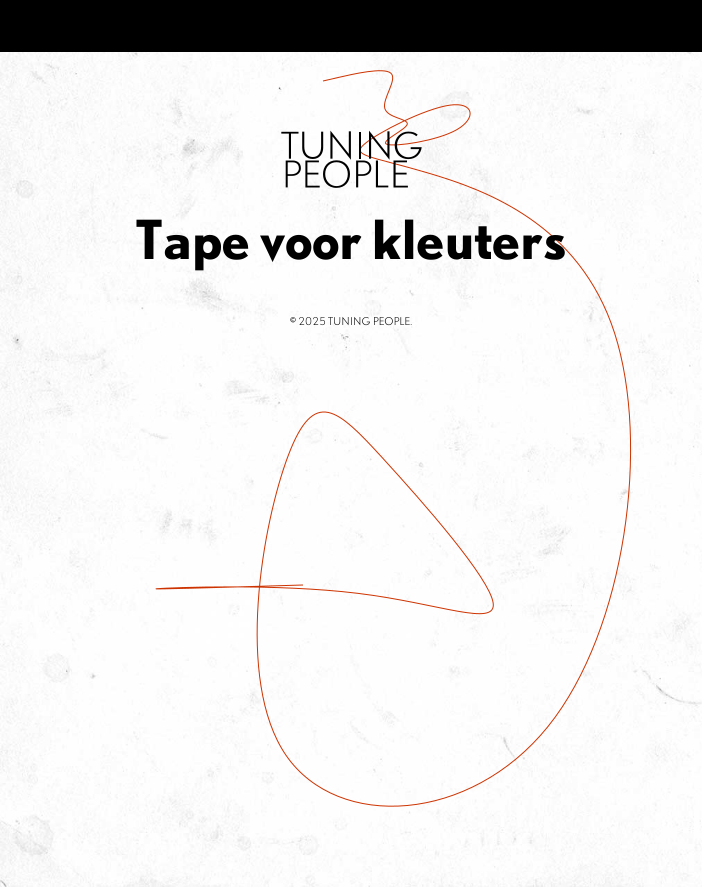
#include <cairo.h>
#include <math.h>
#include <stddef.h>


static void set_color(cairo_t *cr, unsigned color) {
    cairo_set_source_rgb(cr, (color >> 16) / 255.0, (color >> 8 & 255) / 255.0, (color & 255) / 255.0);
}

static void draw_text(cairo_t *cr, double x, double y, const char *s, const char *family, double size, int italic, int bold, unsigned color) {
    cairo_select_font_face(cr, family, italic ? CAIRO_FONT_SLANT_ITALIC : CAIRO_FONT_SLANT_NORMAL,
        bold ? CAIRO_FONT_WEIGHT_BOLD : CAIRO_FONT_WEIGHT_NORMAL);
    cairo_set_font_size(cr, size);
    set_color(cr, color);
    cairo_move_to(cr, x, y);
    cairo_show_text(cr, s);
}

static void fill_rect(cairo_t *cr, double x, double y, double w, double h, unsigned color) {
    set_color(cr, color);
    cairo_rectangle(cr, x, y, w, h);
    cairo_fill(cr);
}

static void draw_image(cairo_t *cr, const char *path, double x, double y, double w, double h) {
    cairo_surface_t *image = cairo_image_surface_create_from_png(path);
    cairo_save(cr);
    cairo_set_source_surface(cr, image, x, y);
    cairo_rectangle(cr, x, y, w, h);
    cairo_fill(cr);
    cairo_restore(cr);
    cairo_surface_destroy(image);
}

int main(void) {
    cairo_surface_t *surface = cairo_image_surface_create(CAIRO_FORMAT_RGB24, 702, 887);
    cairo_t *cr = cairo_create(surface);
    cairo_font_options_t *options = cairo_font_options_create();
    cairo_font_options_set_hint_metrics(options, CAIRO_HINT_METRICS_OFF);
    cairo_font_options_set_hint_style(options, CAIRO_HINT_STYLE_NONE);
    cairo_set_font_options(cr, options);
    cairo_set_miter_limit(cr, 4);
    set_color(cr, 0xFFFFFF);
    cairo_paint(cr);
    fill_rect(cr, 0, 0, 702, 52, 0x000000);
    draw_image(cr, "assets/img1.png", 0, 52, 702, 835);
    draw_image(cr, "assets/img2.png", 155, 70, 477, 737);
    draw_image(cr, "assets/img3.png", 281, 130, 141, 58);
    draw_text(cr, 135, 259, "Tape voor kleuters", "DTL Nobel", 50, 0, 1, 0x000000);
    draw_text(cr, 290, 325, "© 2025 TUNING PEOPLE.", "DTL Nobel Light", 10, 0, 0, 0x000000);
    cairo_surface_write_to_png(surface, "output.png");
    cairo_font_options_destroy(options);
    cairo_destroy(cr);
    cairo_surface_destroy(surface);
    return 0;
}
